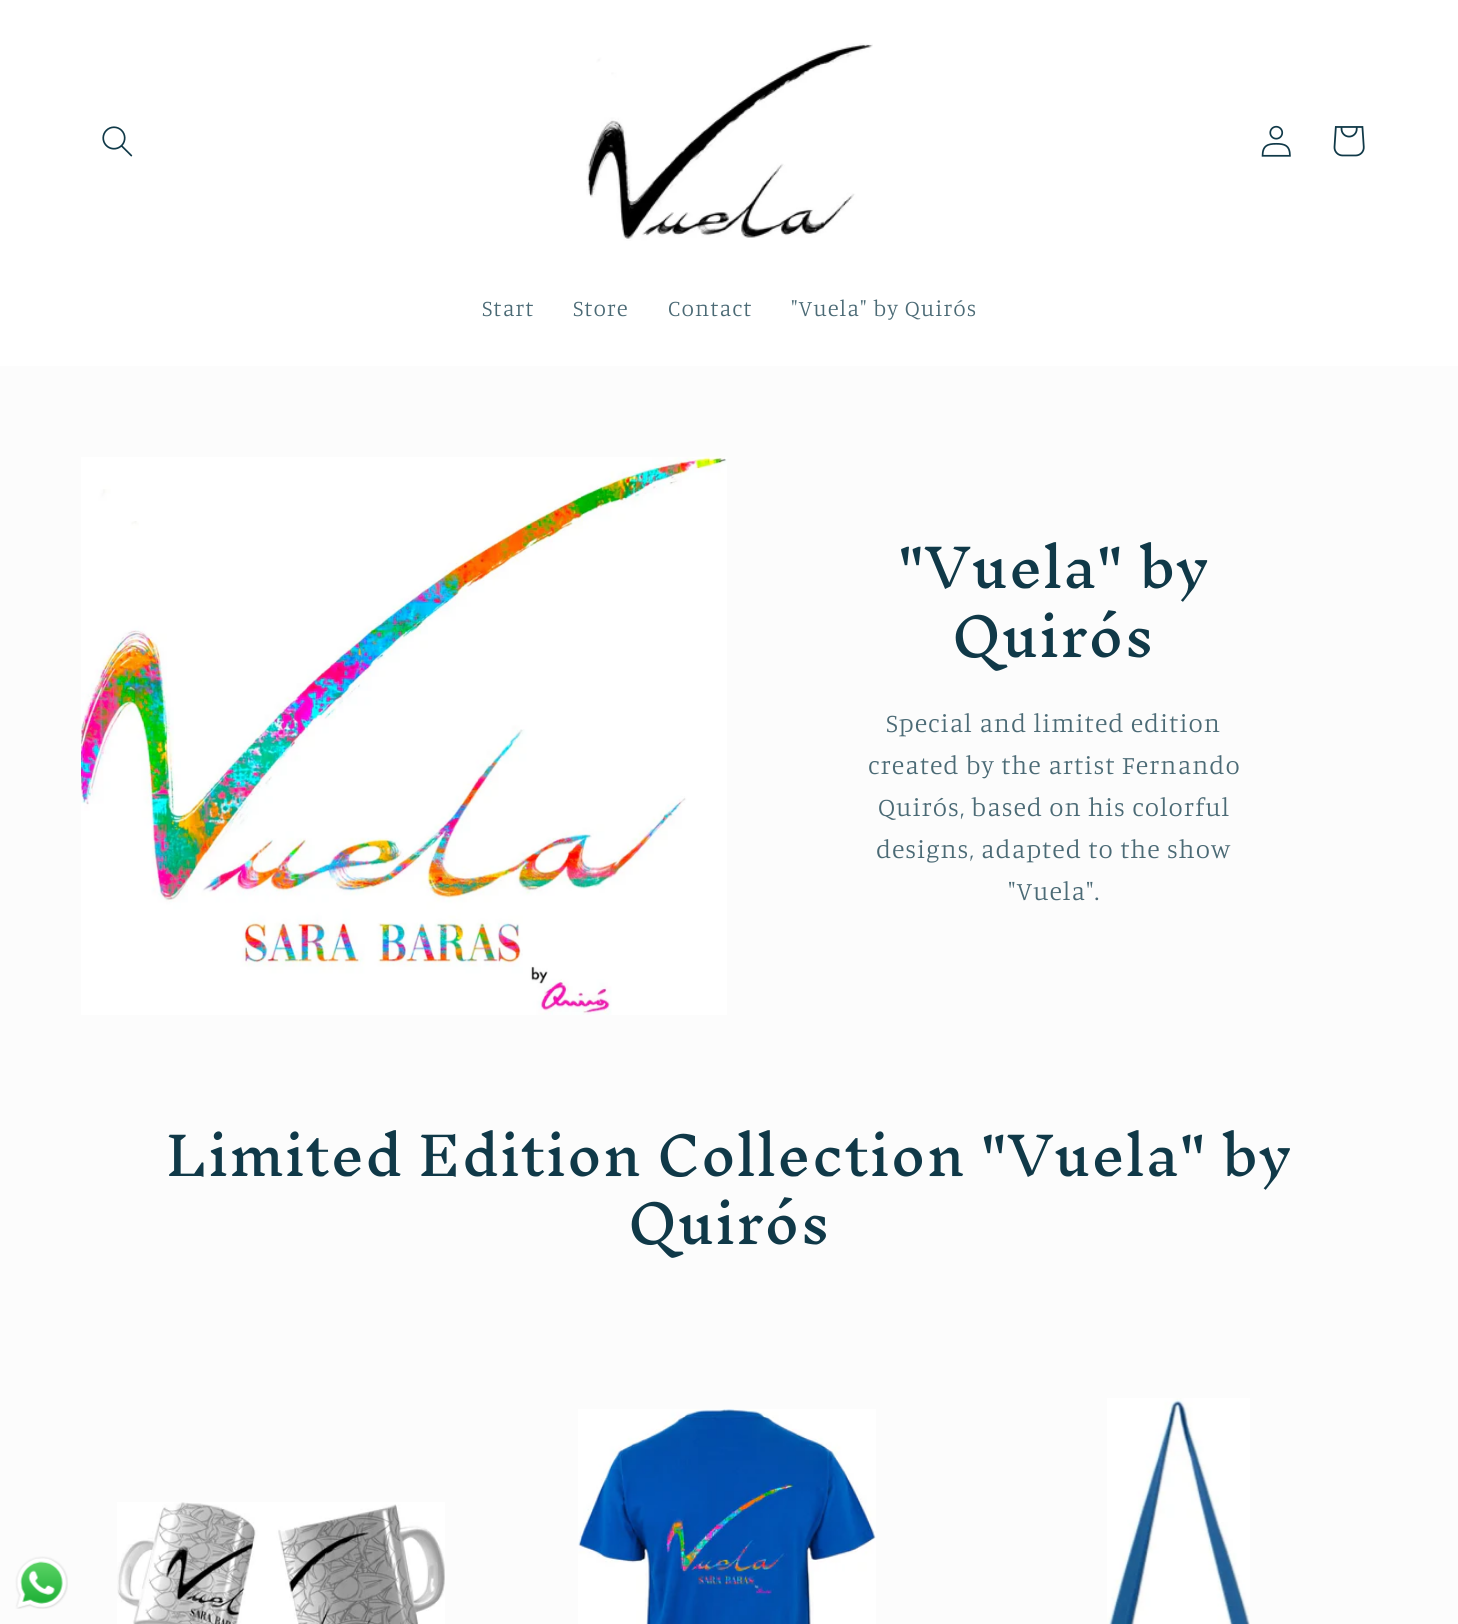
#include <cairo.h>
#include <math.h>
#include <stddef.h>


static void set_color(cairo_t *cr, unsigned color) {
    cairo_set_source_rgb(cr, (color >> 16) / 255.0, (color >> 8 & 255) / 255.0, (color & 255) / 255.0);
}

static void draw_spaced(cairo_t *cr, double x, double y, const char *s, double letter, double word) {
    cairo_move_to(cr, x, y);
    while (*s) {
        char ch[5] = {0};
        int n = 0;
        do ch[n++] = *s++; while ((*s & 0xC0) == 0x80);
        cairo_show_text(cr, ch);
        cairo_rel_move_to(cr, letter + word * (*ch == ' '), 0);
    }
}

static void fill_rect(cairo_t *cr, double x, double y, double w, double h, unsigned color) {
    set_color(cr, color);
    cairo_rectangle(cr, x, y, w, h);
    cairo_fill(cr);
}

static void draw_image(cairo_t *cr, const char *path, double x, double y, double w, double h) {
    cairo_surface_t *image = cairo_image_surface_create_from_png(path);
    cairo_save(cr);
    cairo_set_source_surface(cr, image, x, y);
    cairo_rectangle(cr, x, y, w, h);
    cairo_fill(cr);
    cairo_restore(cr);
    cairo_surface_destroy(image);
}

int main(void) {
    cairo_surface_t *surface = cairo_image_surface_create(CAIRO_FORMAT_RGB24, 1458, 1624);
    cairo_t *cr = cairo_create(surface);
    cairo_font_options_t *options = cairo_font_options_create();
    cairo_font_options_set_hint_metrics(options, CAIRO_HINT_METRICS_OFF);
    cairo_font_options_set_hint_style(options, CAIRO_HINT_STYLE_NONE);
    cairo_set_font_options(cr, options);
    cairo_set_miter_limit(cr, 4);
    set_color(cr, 0xFCFCFC);
    cairo_paint(cr);
    fill_rect(cr, 0, 0, 1458, 366, 0xFFFFFF);
    draw_image(cr, "assets/img1.png", 102, 126, 31, 31);
    draw_image(cr, "assets/img2.png", 586, 43, 287, 198);
    draw_image(cr, "assets/img3.png", 1261, 125, 30, 32);
    draw_image(cr, "assets/img4.png", 1333, 126, 32, 31);
    cairo_select_font_face(cr, "Manuale Light", CAIRO_FONT_SLANT_NORMAL, CAIRO_FONT_WEIGHT_NORMAL);
    cairo_set_font_size(cr, 22.75);
    set_color(cr, 0x4B6A75);
    draw_spaced(cr, 482, 316, "Start", 1, 0);
    draw_spaced(cr, 573, 316, "Store", 1, 0);
    draw_spaced(cr, 668, 316, "Contact", 1, 0);
    draw_spaced(cr, 791, 316, "\"Vuela\" by Quirós", 1, 0);
    draw_image(cr, "assets/img5.png", 81, 457, 646, 558);
    cairo_select_font_face(cr, "Inknut Antiqua", CAIRO_FONT_SLANT_NORMAL, CAIRO_FONT_WEIGHT_NORMAL);
    cairo_set_font_size(cr, 52.5);
    set_color(cr, 0x103948);
    draw_spaced(cr, 898, 588, "\"Vuela\" by", 0.8, 0);
    draw_spaced(cr, 952, 657, "Quirós", 0.8, 0);
    cairo_select_font_face(cr, "Manuale Light", CAIRO_FONT_SLANT_NORMAL, CAIRO_FONT_WEIGHT_NORMAL);
    cairo_set_font_size(cr, 26);
    set_color(cr, 0x4B6A75);
    draw_spaced(cr, 886, 732, "Special and limited edition", 1, 0);
    draw_spaced(cr, 868, 774, "created by the artist Fernando", 1, 0);
    draw_spaced(cr, 878, 816, "Quirós, based on his colorful", 1, 0);
    draw_spaced(cr, 876, 858, "designs, adapted to the show", 1, 0);
    draw_spaced(cr, 1008, 900, "\"Vuela\".", 1, 0);
    cairo_select_font_face(cr, "Inknut Antiqua", CAIRO_FONT_SLANT_NORMAL, CAIRO_FONT_WEIGHT_NORMAL);
    cairo_set_font_size(cr, 52.5);
    set_color(cr, 0x103948);
    draw_spaced(cr, 166, 1176, "Limited Edition Collection \"Vuela\" by", 0.8, 0);
    draw_spaced(cr, 628, 1244, "Quirós", 0.8, 0);
    draw_image(cr, "assets/img6.png", 117, 1502, 328, 122);
    draw_image(cr, "assets/img7.png", 578, 1409, 298, 215);
    draw_image(cr, "assets/img8.png", 1107, 1398, 143, 226);
    draw_image(cr, "assets/img9.png", 15, 1556, 53, 53);
    cairo_surface_write_to_png(surface, "output.png");
    cairo_font_options_destroy(options);
    cairo_destroy(cr);
    cairo_surface_destroy(surface);
    return 0;
}
